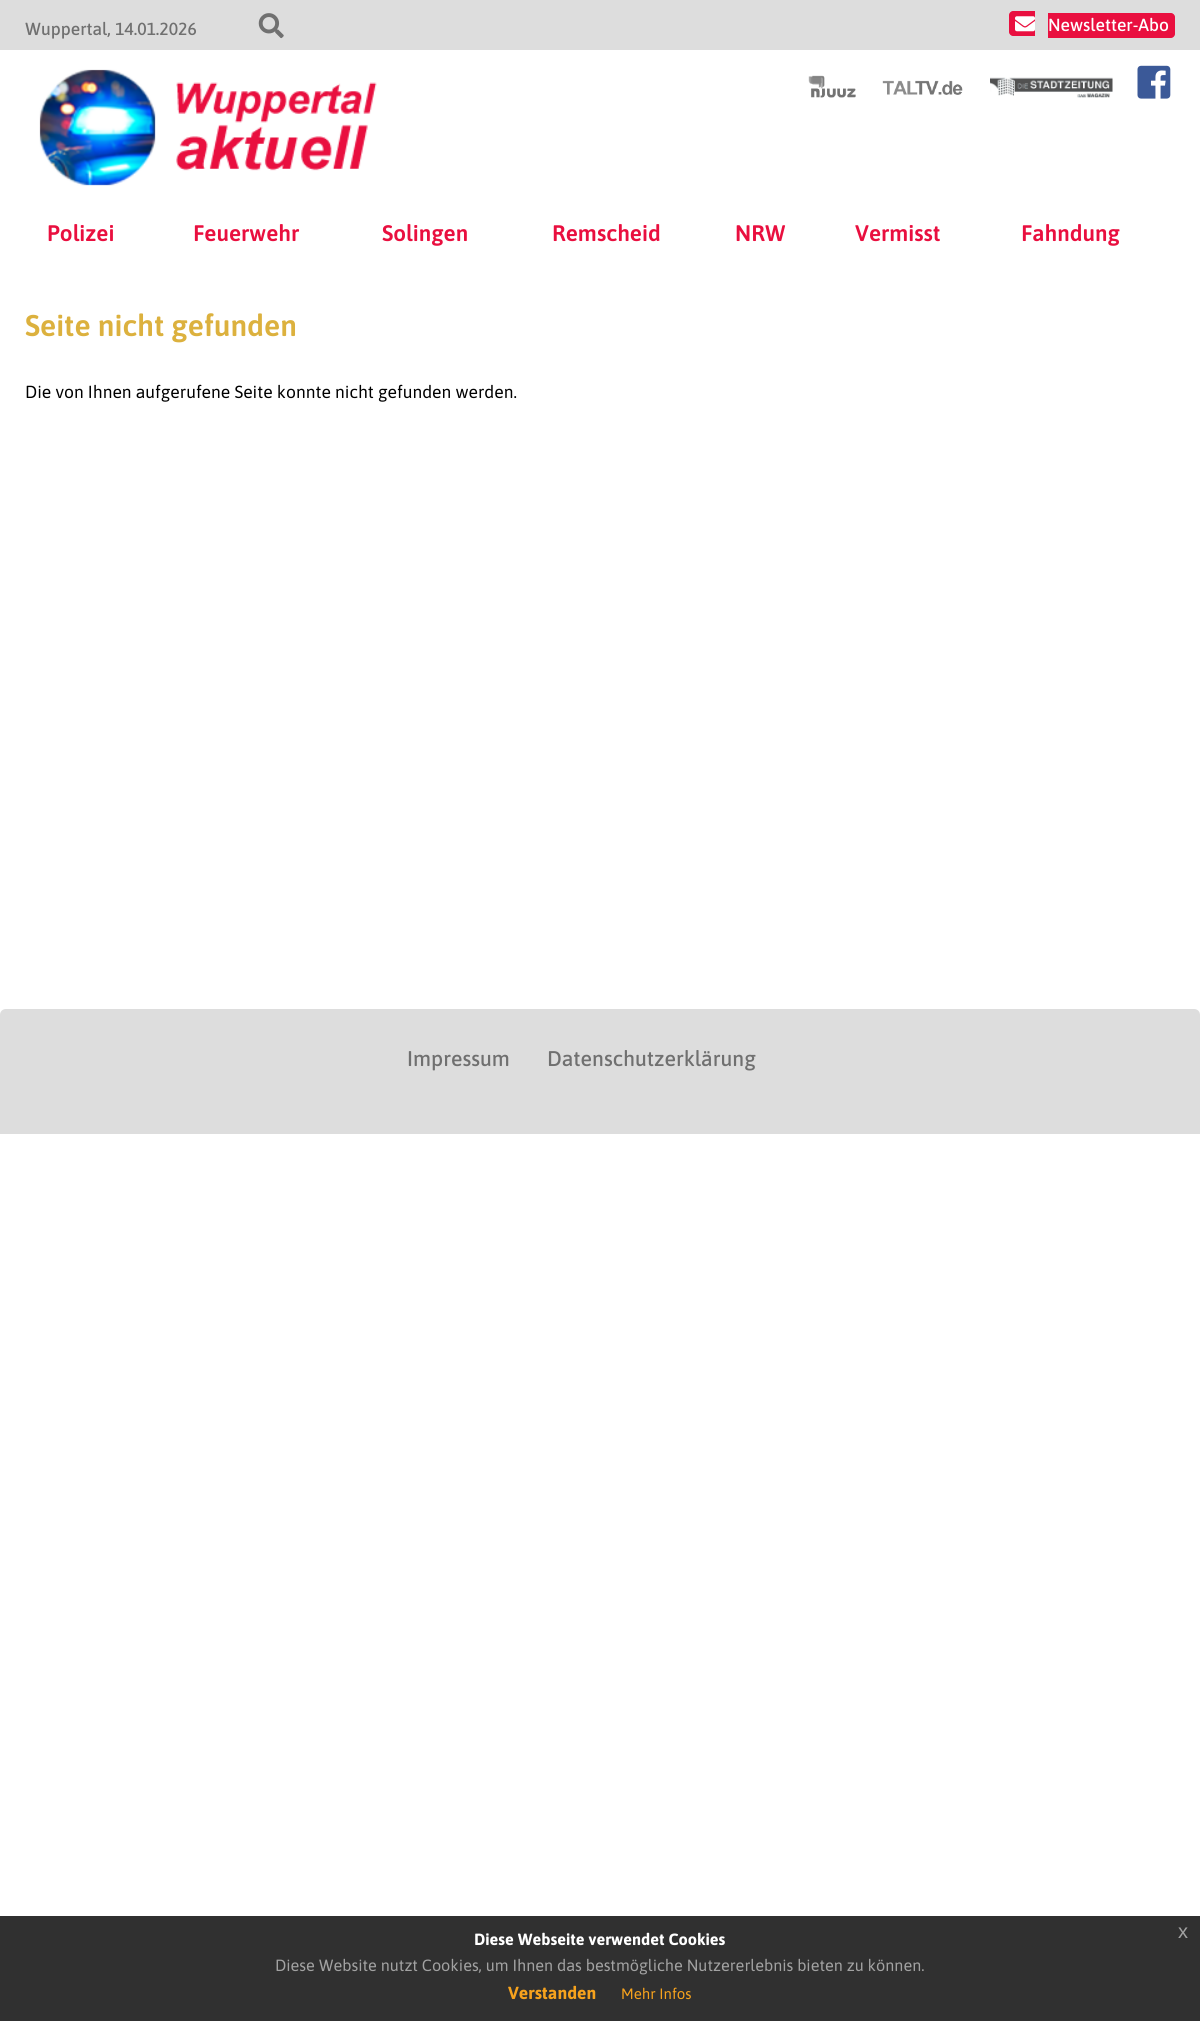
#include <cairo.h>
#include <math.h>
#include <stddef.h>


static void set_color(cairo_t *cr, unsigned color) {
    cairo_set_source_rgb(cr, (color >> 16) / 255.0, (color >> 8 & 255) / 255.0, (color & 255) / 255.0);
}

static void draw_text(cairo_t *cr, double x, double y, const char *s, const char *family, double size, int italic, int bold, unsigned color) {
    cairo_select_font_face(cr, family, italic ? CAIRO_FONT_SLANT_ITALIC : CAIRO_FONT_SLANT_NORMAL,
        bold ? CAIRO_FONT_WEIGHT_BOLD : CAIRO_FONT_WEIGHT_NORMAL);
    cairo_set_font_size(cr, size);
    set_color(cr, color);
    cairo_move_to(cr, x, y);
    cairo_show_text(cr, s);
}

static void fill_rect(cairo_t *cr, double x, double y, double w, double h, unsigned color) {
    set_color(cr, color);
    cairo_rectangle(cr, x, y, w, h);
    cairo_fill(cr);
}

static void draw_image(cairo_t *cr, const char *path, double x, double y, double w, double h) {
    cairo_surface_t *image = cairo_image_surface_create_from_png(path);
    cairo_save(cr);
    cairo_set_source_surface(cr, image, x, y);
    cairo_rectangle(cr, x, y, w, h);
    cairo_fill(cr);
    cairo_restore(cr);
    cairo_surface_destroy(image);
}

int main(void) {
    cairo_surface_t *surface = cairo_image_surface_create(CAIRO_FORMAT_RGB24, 1200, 2021);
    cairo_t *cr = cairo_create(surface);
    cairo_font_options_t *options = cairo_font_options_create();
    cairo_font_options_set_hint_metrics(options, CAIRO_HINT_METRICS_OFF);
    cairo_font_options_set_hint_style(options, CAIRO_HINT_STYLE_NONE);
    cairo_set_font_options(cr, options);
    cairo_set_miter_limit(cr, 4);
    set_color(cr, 0xFFFFFF);
    cairo_paint(cr);
    fill_rect(cr, 0, 0, 1200, 50, 0xDDDDDD);
    draw_text(cr, 25, 35, "Wuppertal, 14.01.2026", "Asap Medium", 17.5, 0, 0, 0x707070);
    draw_image(cr, "assets/img1.png", 258, 13, 26, 26);
    set_color(cr, 0xE90F3F);
    cairo_new_path(cr);
    cairo_move_to(cr, 1013, 11);
    cairo_line_to(cr, 1035, 11);
    cairo_line_to(cr, 1035, 36);
    cairo_line_to(cr, 1013, 36);
    cairo_curve_to(cr, 1011, 36, 1009, 34, 1009, 32);
    cairo_line_to(cr, 1009, 15);
    cairo_curve_to(cr, 1009, 13, 1011, 11, 1013, 11);
    cairo_close_path(cr);
    cairo_fill(cr);
    draw_image(cr, "assets/img2.png", 1015, 16, 20, 16);
    cairo_new_path(cr);
    cairo_move_to(cr, 1048, 13);
    cairo_line_to(cr, 1171, 13);
    cairo_curve_to(cr, 1173, 13, 1175, 15, 1175, 17);
    cairo_line_to(cr, 1175, 34);
    cairo_curve_to(cr, 1175, 36, 1173, 38, 1171, 38);
    cairo_line_to(cr, 1048, 38);
    cairo_close_path(cr);
    cairo_fill(cr);
    draw_text(cr, 1048, 31, "Newsletter-Abo", "Asap Medium", 17.5, 0, 0, 0xFFFFFF);
    draw_image(cr, "assets/img3.png", 39, 69, 338, 117);
    draw_image(cr, "assets/img4.png", 808, 75, 48, 23);
    draw_image(cr, "assets/img5.png", 882, 80, 81, 15);
    draw_image(cr, "assets/img6.png", 990, 77, 123, 21);
    draw_image(cr, "assets/img7.png", 1137, 65, 34, 34);
    draw_text(cr, 47, 241, "Polizei", "Asap SemiBold", 22.5, 0, 0, 0xE90F3F);
    draw_text(cr, 193, 241, "Feuerwehr", "Asap SemiBold", 22.5, 0, 0, 0xE90F3F);
    draw_text(cr, 382, 241, "Solingen", "Asap SemiBold", 22.5, 0, 0, 0xE90F3F);
    draw_text(cr, 552, 241, "Remscheid", "Asap SemiBold", 22.5, 0, 0, 0xE90F3F);
    draw_text(cr, 735, 241, "NRW", "Asap SemiBold", 22.5, 0, 0, 0xE90F3F);
    draw_text(cr, 855, 241, "Vermisst", "Asap SemiBold", 22.5, 0, 0, 0xE90F3F);
    draw_text(cr, 1021, 241, "Fahndung", "Asap SemiBold", 22.5, 0, 0, 0xE90F3F);
    draw_text(cr, 25, 336, "Seite nicht gefunden", "Asap SemiBold", 30, 0, 0, 0xDCB13E);
    draw_text(cr, 25, 398, "Die von Ihnen aufgerufene Seite konnte nicht gefunden werden.", "Asap", 17.5, 0, 0, 0x000000);
    set_color(cr, 0xDDDDDD);
    cairo_new_path(cr);
    cairo_move_to(cr, 6, 1009);
    cairo_line_to(cr, 1194, 1009);
    cairo_curve_to(cr, 1197.5, 1009, 1200, 1011.5, 1200, 1015);
    cairo_line_to(cr, 1200, 1134);
    cairo_line_to(cr, 0, 1134);
    cairo_line_to(cr, 0, 1015);
    cairo_curve_to(cr, 0, 1011.5, 2.5, 1009, 6, 1009);
    cairo_close_path(cr);
    cairo_fill(cr);
    draw_text(cr, 407, 1066, "Impressum", "Asap Medium", 21.25, 0, 0, 0x707070);
    draw_text(cr, 547, 1066, "Datenschutzerklärung", "Asap Medium", 21.25, 0, 0, 0x707070);
    fill_rect(cr, 0, 1916, 1200, 105, 0x303030);
    draw_text(cr, 474, 1945, "Diese Webseite verwendet Cookies", "Asap", 16.25, 0, 1, 0xFFFFFF);
    draw_text(cr, 1178, 1938, "x", "Liberation Sans", 20, 0, 0, 0xA2A2A2);
    draw_text(cr, 275, 1971, "Diese Website nutzt Cookies, um Ihnen das bestmögliche Nutzererlebnis bieten zu können.", "Asap", 16.25, 0, 0, 0xA2A2A2);
    draw_text(cr, 508, 1999, "Verstanden", "Asap", 17.5, 0, 1, 0xF6A21D);
    draw_text(cr, 621, 1999, "Mehr Infos", "Asap", 15, 0, 0, 0xF6A21D);
    cairo_surface_write_to_png(surface, "output.png");
    cairo_font_options_destroy(options);
    cairo_destroy(cr);
    cairo_surface_destroy(surface);
    return 0;
}
